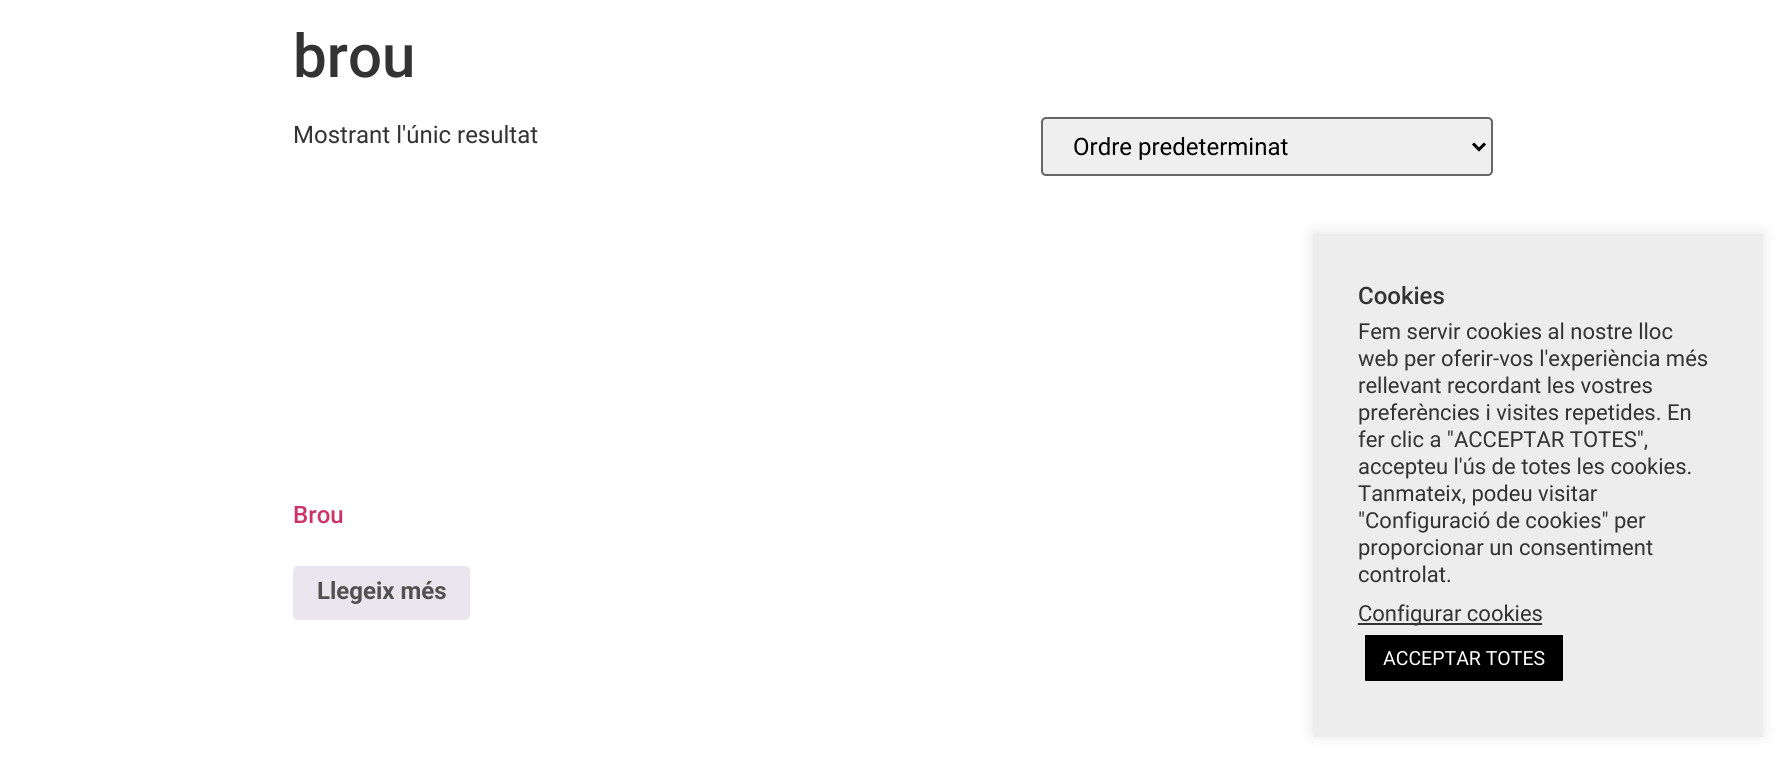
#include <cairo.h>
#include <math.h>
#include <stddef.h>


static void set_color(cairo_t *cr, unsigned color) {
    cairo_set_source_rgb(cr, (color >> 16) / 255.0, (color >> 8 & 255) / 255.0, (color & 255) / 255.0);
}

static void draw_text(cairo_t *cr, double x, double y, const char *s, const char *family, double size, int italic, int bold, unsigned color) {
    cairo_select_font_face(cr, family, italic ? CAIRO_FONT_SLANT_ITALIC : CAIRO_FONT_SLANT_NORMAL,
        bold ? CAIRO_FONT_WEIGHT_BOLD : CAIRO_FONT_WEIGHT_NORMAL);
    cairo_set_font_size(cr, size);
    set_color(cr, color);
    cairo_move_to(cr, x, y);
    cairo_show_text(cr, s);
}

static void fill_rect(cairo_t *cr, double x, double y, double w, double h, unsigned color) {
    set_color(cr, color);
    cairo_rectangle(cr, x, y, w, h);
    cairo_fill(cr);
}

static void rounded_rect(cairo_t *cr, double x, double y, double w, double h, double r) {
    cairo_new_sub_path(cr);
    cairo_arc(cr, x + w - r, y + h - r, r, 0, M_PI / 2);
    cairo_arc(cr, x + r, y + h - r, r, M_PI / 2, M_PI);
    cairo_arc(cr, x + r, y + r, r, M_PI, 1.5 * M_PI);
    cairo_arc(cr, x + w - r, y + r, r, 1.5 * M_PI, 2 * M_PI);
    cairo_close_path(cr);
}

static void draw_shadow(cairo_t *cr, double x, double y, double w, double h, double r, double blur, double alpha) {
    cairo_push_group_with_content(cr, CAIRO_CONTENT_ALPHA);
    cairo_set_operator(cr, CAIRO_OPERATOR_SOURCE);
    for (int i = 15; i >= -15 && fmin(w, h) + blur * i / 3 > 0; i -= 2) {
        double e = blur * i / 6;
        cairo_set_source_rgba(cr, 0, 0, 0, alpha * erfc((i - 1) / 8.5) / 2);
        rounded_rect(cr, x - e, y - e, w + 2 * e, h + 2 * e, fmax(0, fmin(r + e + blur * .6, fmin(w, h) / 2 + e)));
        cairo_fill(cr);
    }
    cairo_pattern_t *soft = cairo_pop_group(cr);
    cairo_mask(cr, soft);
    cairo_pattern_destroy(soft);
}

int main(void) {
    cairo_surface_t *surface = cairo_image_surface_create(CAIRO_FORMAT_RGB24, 1784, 758);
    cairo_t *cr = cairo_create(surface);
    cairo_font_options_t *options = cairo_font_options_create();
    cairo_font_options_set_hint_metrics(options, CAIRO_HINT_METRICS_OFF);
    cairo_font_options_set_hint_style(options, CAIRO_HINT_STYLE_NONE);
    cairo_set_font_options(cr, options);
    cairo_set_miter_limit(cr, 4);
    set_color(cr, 0xFFFFFF);
    cairo_paint(cr);
    draw_text(cr, 293, 77, "brou", "Roboto Medium", 60, 0, 0, 0x333333);
    draw_text(cr, 293, 143, "Mostrant l'únic resultat", "Roboto", 24, 0, 0, 0x333333);
    set_color(cr, 0xEFEFEF);
    rounded_rect(cr, 1042, 118, 450, 57, 4);
    cairo_fill_preserve(cr);
    set_color(cr, 0x666666);
    cairo_stroke(cr);
    cairo_new_path(cr);
    cairo_move_to(cr, 1473, 143.5);
    cairo_line_to(cr, 1479, 149.5);
    cairo_line_to(cr, 1485, 143.5);
    set_color(cr, 0x000000);
    cairo_set_line_width(cr, 3);
    cairo_stroke(cr);
    draw_text(cr, 1073, 155, "Ordre predeterminat", "Roboto", 24, 0, 0, 0x000000);
    draw_text(cr, 293, 523, "Brou", "Roboto Medium", 24, 0, 0, 0xCC3366);
    set_color(cr, 0xE9E6ED);
    rounded_rect(cr, 293, 566, 177, 54, 5);
    cairo_fill(cr);
    draw_text(cr, 317, 599, "Llegeix més", "Roboto", 24, 0, 1, 0x515151);
    set_color(cr, 0xACABAB);
    draw_shadow(cr, 1313, 233, 450, 502, 0, 7.5, 0.3);
    fill_rect(cr, 1313, 234, 450, 503, 0xEDEDED);
    draw_text(cr, 1358, 304, "Cookies", "Roboto Medium", 24, 0, 0, 0x333333);
    draw_text(cr, 1358, 339, "Fem servir cookies al nostre lloc", "Roboto", 22, 0, 0, 0x333333);
    draw_text(cr, 1358, 366, "web per oferir-vos l'experiència més", "Roboto", 22, 0, 0, 0x333333);
    draw_text(cr, 1358, 393, "rellevant recordant les vostres", "Roboto", 22, 0, 0, 0x333333);
    draw_text(cr, 1358, 420, "preferències i visites repetides. En", "Roboto", 22, 0, 0, 0x333333);
    draw_text(cr, 1358, 447, "fer clic a \"ACCEPTAR TOTES\",", "Roboto", 22, 0, 0, 0x333333);
    draw_text(cr, 1358, 474, "accepteu l'ús de totes les cookies.", "Roboto", 22, 0, 0, 0x333333);
    draw_text(cr, 1358, 501, "Tanmateix, podeu visitar", "Roboto", 22, 0, 0, 0x333333);
    draw_text(cr, 1358, 528, "\"Configuració de cookies\" per", "Roboto", 22, 0, 0, 0x333333);
    draw_text(cr, 1358, 555, "proporcionar un consentiment", "Roboto", 22, 0, 0, 0x333333);
    draw_text(cr, 1358, 582, "controlat.", "Roboto", 22, 0, 0, 0x333333);
    fill_rect(cr, 1358, 623, 184, 2, 0x333333);
    draw_text(cr, 1358, 621, "Configurar cookies", "Roboto", 22, 0, 0, 0x333333);
    fill_rect(cr, 1365, 635, 198, 46, 0x000000);
    draw_text(cr, 1383, 665, "ACCEPTAR TOTES", "Roboto", 19.5, 0, 0, 0xFFFFFF);
    cairo_surface_write_to_png(surface, "output.png");
    cairo_font_options_destroy(options);
    cairo_destroy(cr);
    cairo_surface_destroy(surface);
    return 0;
}
